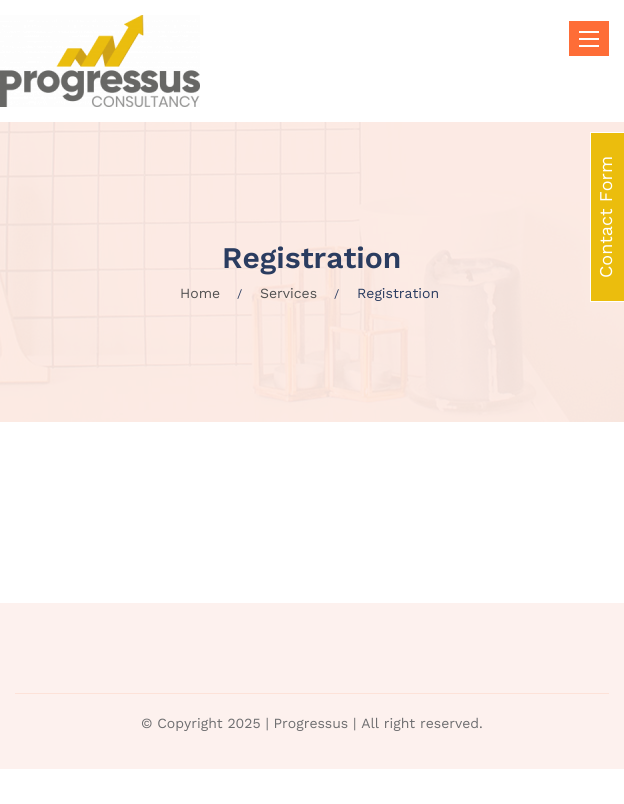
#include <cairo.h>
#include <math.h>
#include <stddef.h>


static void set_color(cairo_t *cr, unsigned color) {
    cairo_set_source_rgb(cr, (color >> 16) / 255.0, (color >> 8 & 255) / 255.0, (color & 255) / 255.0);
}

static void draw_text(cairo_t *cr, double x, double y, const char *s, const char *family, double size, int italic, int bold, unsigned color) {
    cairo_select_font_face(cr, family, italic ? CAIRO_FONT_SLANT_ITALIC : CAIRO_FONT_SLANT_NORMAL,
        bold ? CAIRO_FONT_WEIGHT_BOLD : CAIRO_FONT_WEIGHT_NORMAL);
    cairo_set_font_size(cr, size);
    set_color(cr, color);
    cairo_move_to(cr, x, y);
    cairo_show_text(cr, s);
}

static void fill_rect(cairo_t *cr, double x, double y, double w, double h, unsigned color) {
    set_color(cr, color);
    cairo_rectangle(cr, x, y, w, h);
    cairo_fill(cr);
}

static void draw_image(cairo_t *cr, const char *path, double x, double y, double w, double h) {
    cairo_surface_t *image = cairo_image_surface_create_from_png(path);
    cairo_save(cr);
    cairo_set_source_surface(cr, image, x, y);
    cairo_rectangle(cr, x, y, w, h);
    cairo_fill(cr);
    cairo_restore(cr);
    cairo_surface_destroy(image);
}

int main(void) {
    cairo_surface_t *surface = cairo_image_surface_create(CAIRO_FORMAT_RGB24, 624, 804);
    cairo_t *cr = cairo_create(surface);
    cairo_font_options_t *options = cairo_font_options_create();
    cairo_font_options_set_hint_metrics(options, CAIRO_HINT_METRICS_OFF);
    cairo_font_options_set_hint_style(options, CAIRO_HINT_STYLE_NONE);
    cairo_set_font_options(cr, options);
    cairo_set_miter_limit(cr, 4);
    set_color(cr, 0xFFFFFF);
    cairo_paint(cr);
    draw_image(cr, "assets/img2.png", 0, 122, 624, 300);
    fill_rect(cr, 591, 133, 33, 168, 0xEBBD0D);
    fill_rect(cr, 590, 132, 1, 170, 0xFFFFFF);
    fill_rect(cr, 590, 132, 34, 1, 0xFFFFFF);
    fill_rect(cr, 590, 301, 34, 1, 0xFFFFFF);
    cairo_save(cr);
    cairo_translate(cr, 612, 278);
    cairo_rotate(cr, -90 * M_PI / 180);
    draw_text(cr, 0, 0, "Contact Form", "Work Sans", 18, 0, 0, 0xFFFFFF);
    cairo_restore(cr);
    draw_image(cr, "assets/img1.png", 0, 15, 200, 92);
    fill_rect(cr, 569, 21, 40, 35, 0xFE6D37);
    fill_rect(cr, 579, 31, 20, 2, 0xFFFFFF);
    fill_rect(cr, 579, 38, 20, 2, 0xFFFFFF);
    fill_rect(cr, 579, 45, 20, 2, 0xFFFFFF);
    draw_text(cr, 222, 268, "Registration", "Work Sans SemiBold", 30, 0, 0, 0x2A3C60);
    draw_text(cr, 180, 298, "Home", "Work Sans", 14, 0, 0, 0x525151);
    draw_text(cr, 237, 298, "/", "Work Sans", 12, 0, 0, 0x2A3C60);
    draw_text(cr, 260, 298, "Services", "Work Sans", 14, 0, 0, 0x525151);
    draw_text(cr, 334, 298, "/", "Work Sans", 12, 0, 0, 0x2A3C60);
    draw_text(cr, 357, 298, "Registration", "Work Sans", 14, 0, 0, 0x2A3C60);
    fill_rect(cr, 0, 603, 624, 166, 0xFDF1EE);
    fill_rect(cr, 15, 693, 594, 1, 0xFDE2D8);
    draw_text(cr, 141, 728, "© Copyright 2025 | Progressus | All right reserved.", "Work Sans", 14, 0, 0, 0x6E6E70);
    cairo_surface_write_to_png(surface, "output.png");
    cairo_font_options_destroy(options);
    cairo_destroy(cr);
    cairo_surface_destroy(surface);
    return 0;
}
